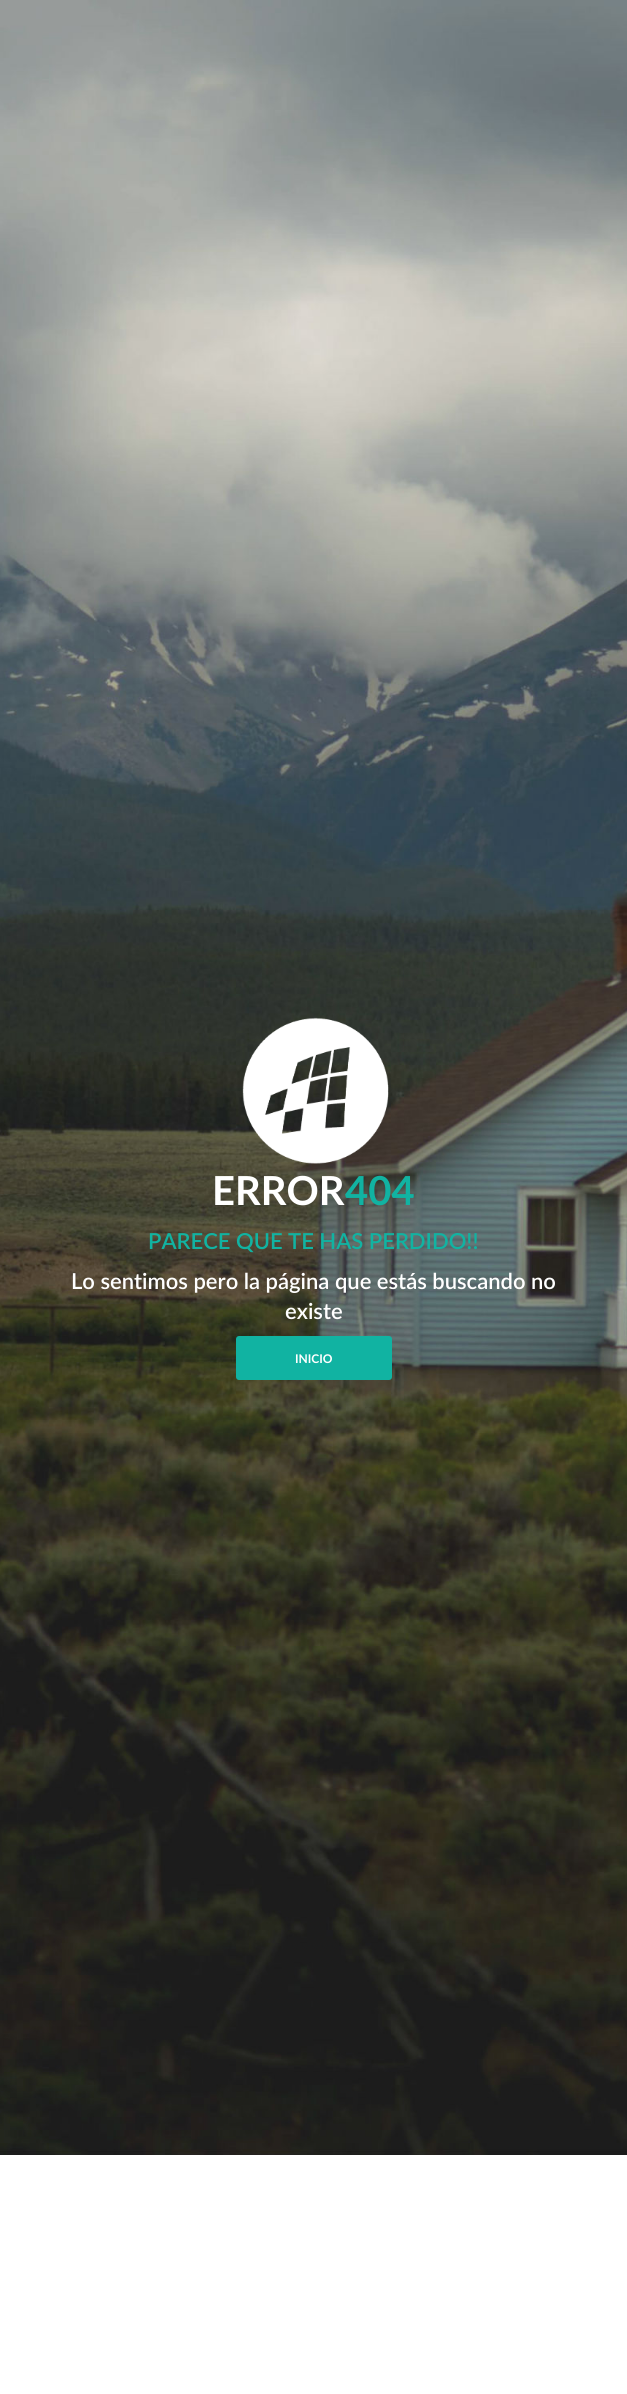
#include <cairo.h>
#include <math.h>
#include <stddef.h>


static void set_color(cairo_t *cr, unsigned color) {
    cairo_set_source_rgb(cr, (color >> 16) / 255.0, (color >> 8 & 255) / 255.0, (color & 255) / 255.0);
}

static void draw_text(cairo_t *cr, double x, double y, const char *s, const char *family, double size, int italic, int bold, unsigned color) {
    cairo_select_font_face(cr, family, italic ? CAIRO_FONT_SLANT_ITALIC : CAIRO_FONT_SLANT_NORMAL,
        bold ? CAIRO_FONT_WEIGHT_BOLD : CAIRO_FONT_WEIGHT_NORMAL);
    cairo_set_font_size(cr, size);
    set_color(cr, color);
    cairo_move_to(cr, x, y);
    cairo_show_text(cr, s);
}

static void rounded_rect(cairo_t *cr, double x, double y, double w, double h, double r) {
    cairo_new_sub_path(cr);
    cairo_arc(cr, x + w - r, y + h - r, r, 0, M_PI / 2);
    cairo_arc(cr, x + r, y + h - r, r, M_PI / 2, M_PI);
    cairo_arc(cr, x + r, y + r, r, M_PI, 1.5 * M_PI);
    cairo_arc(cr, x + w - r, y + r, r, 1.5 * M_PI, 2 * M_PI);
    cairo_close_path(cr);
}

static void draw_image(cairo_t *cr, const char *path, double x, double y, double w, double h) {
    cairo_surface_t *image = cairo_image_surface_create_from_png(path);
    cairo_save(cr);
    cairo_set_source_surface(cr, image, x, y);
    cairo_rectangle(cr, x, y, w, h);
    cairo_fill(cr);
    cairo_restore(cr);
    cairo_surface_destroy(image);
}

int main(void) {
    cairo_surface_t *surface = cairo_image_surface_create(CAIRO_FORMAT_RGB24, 627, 2394);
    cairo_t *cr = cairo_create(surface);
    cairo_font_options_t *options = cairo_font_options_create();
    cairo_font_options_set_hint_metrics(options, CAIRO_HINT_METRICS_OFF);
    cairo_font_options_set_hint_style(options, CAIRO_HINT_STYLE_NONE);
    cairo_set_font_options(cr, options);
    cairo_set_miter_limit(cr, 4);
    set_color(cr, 0xFFFFFF);
    cairo_paint(cr);
    draw_image(cr, "assets/img1.png", 0, 0, 627, 2155);
    draw_image(cr, "assets/img2.png", 242, 1017, 147, 147);
    draw_text(cr, 212, 1205, "ERROR", "Lato", 40, 0, 1, 0xFFFFFF);
    draw_text(cr, 345, 1205, "404", "Lato", 40, 0, 1, 0x11B3A2);
    draw_text(cr, 148, 1249, "PARECE QUE TE HAS PERDIDO!!", "Lato SemiBold", 22, 0, 0, 0x11B3A2);
    draw_text(cr, 71, 1289, "Lo sentimos pero la página que estás buscando no", "Lato SemiBold", 22, 0, 0, 0xFFFFFF);
    draw_text(cr, 285, 1319, "existe", "Lato SemiBold", 22, 0, 0, 0xFFFFFF);
    set_color(cr, 0x11B3A2);
    rounded_rect(cr, 236, 1336, 156, 44, 3);
    cairo_fill(cr);
    draw_text(cr, 295, 1363, "INICIO", "Lato", 12, 0, 1, 0xFFFFFF);
    cairo_surface_write_to_png(surface, "output.png");
    cairo_font_options_destroy(options);
    cairo_destroy(cr);
    cairo_surface_destroy(surface);
    return 0;
}
